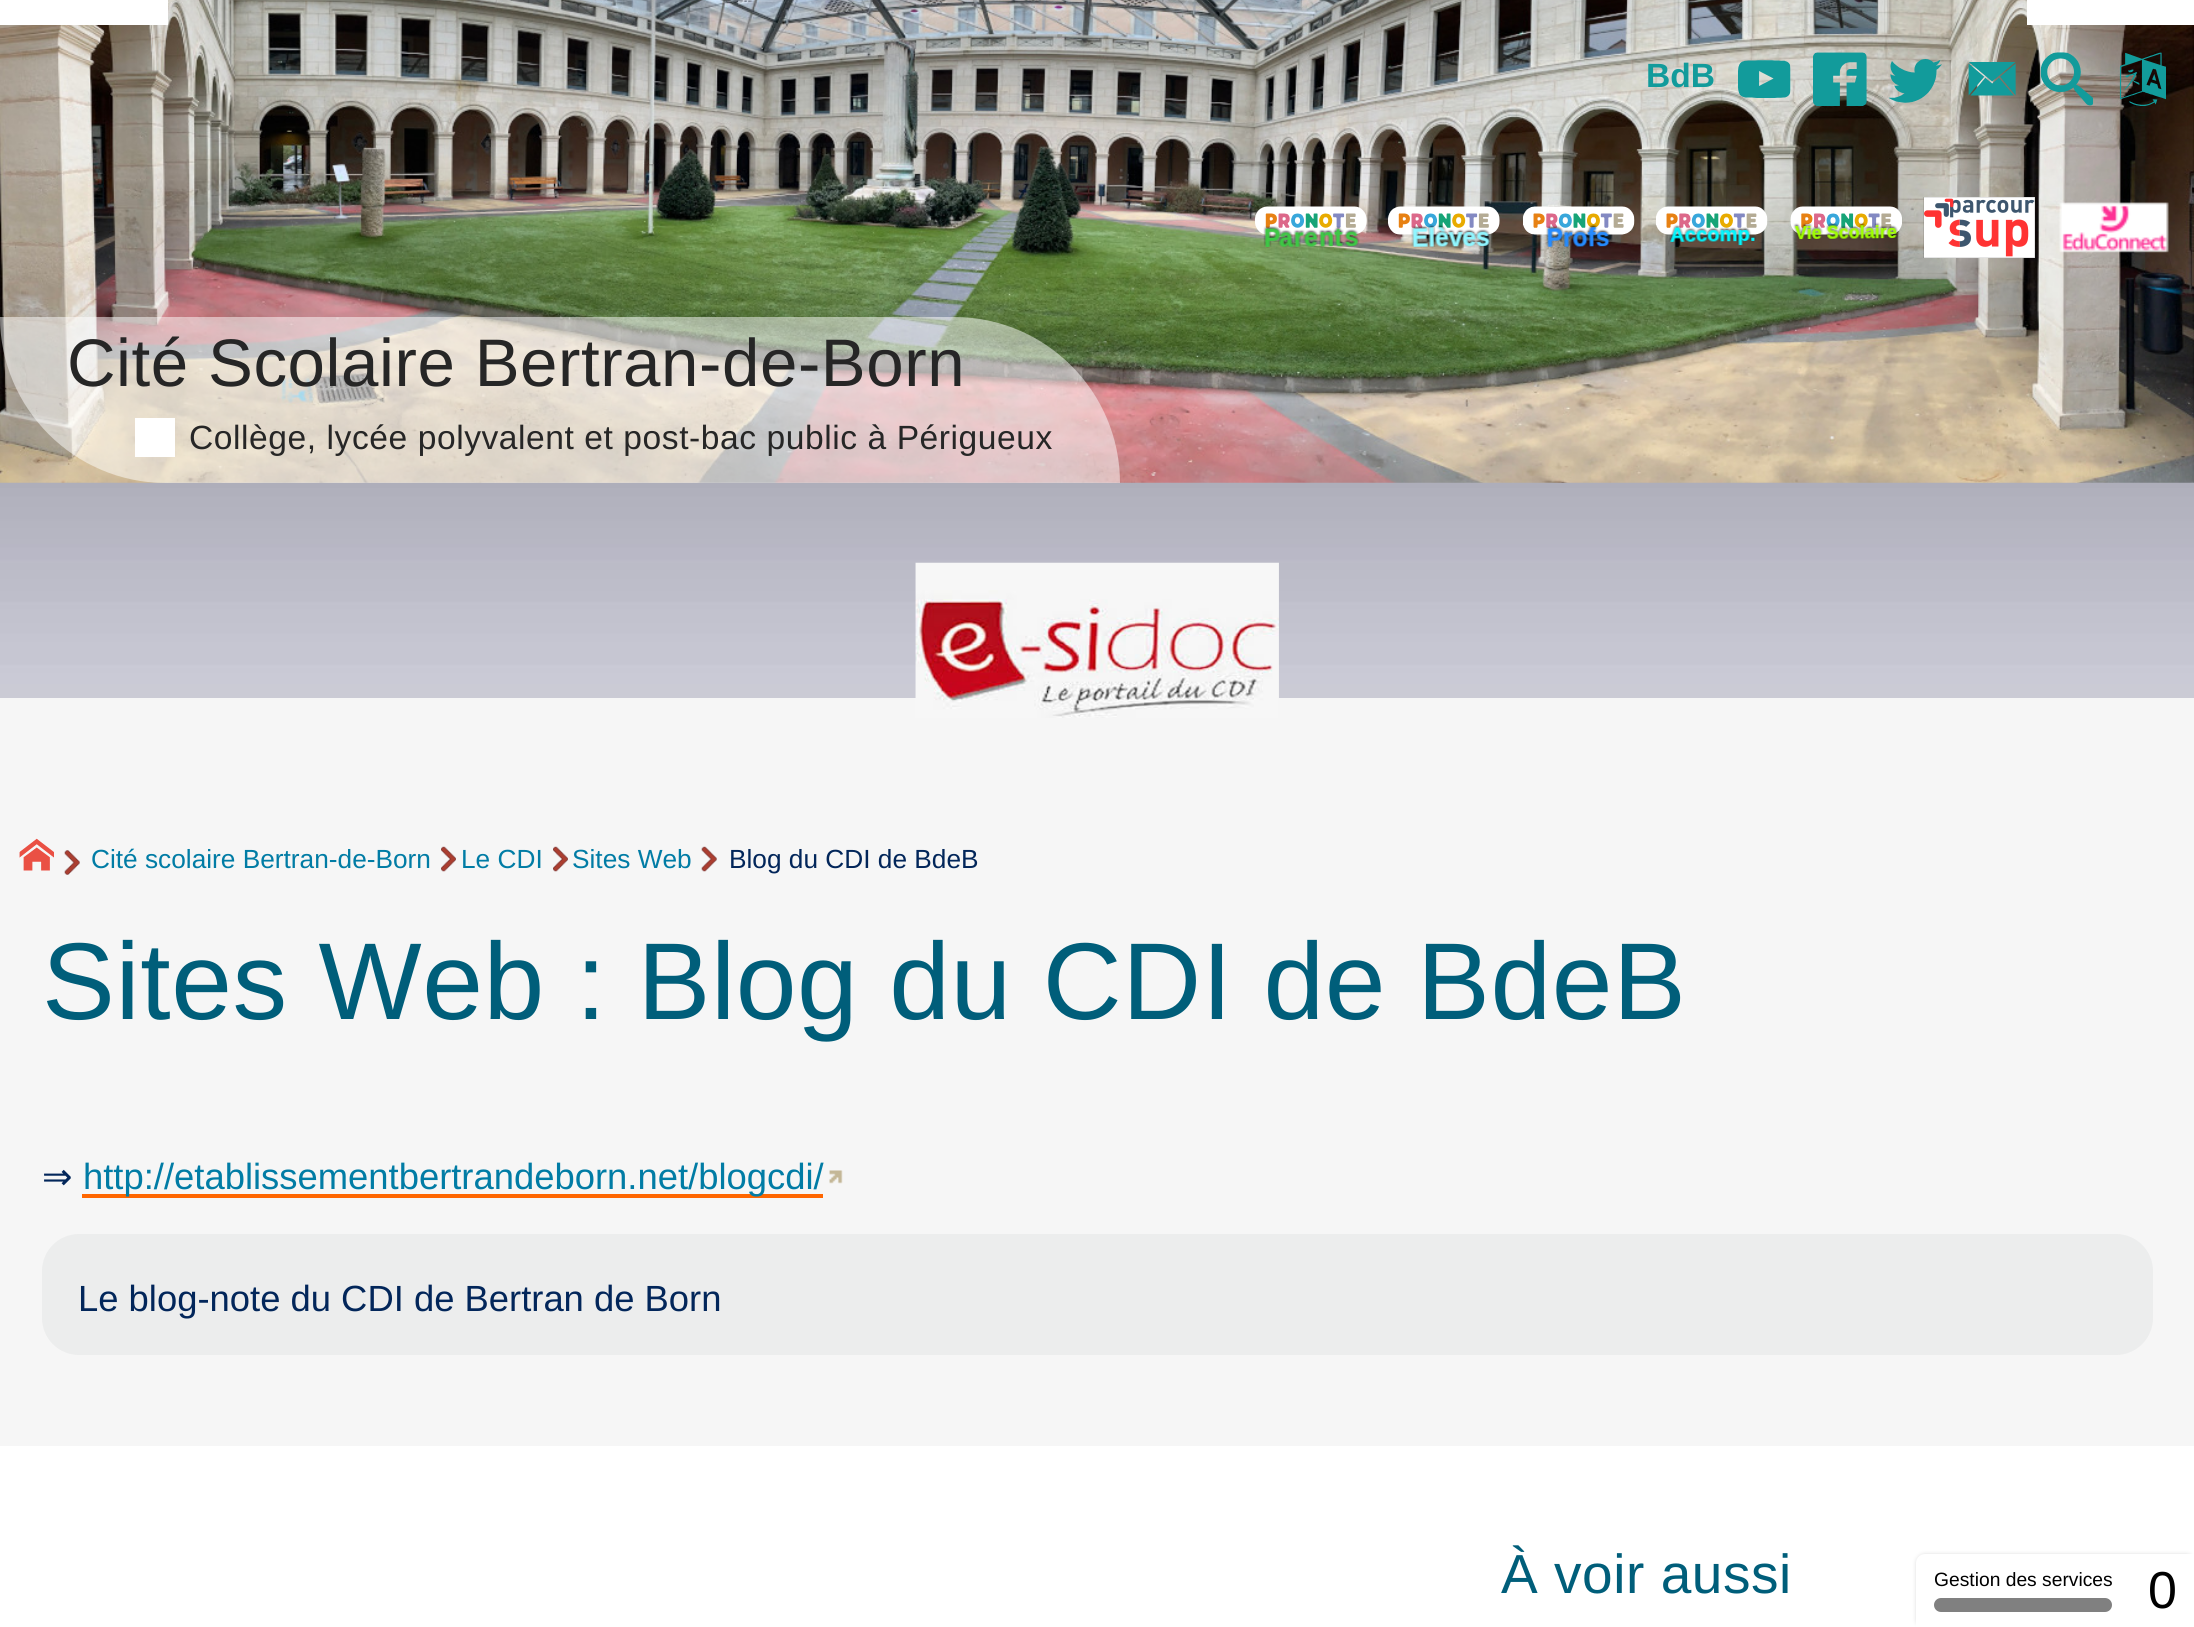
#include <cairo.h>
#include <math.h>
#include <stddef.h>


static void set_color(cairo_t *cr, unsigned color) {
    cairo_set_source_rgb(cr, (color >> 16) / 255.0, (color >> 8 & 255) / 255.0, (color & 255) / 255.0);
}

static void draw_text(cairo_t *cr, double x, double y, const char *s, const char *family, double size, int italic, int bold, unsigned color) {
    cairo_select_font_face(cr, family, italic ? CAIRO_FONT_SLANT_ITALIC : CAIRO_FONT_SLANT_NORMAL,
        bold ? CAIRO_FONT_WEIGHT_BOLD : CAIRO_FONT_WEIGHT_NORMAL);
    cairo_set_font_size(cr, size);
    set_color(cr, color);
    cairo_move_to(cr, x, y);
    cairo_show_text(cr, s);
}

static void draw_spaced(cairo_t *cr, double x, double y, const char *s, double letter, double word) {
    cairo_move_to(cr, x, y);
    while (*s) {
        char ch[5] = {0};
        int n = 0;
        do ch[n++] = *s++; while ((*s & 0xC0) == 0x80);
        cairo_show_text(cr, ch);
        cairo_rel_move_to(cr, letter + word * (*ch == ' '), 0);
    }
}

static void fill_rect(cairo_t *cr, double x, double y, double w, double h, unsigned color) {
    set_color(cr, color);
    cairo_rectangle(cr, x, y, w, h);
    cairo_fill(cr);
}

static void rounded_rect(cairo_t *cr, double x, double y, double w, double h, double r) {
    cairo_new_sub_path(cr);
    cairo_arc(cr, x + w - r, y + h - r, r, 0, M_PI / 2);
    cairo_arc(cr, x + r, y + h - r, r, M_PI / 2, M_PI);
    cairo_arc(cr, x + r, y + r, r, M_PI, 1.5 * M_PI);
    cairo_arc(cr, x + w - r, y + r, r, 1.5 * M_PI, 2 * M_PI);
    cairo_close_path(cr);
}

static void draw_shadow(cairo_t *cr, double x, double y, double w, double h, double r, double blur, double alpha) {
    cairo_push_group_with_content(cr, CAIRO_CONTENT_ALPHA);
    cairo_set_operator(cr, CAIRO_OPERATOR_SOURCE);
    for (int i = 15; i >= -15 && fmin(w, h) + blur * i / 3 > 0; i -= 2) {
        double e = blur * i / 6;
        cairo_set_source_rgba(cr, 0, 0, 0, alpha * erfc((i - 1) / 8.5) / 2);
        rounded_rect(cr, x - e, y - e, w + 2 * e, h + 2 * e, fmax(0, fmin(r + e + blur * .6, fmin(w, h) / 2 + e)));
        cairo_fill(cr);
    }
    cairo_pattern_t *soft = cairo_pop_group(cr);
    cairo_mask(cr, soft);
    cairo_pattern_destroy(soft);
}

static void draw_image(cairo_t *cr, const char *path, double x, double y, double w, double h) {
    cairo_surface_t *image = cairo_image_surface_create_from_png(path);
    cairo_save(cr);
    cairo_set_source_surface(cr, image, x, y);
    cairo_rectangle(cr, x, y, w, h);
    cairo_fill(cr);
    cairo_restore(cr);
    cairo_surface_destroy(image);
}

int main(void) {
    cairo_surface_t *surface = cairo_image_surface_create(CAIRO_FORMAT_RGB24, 2194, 1627);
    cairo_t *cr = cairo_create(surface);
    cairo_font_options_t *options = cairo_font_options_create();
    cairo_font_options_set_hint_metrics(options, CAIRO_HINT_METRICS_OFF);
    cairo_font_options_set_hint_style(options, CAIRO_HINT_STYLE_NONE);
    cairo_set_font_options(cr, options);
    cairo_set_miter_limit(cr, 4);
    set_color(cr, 0xF6F6F6);
    cairo_paint(cr);
    draw_image(cr, "assets/img1.png", 0, 482, 2194, 216);
    draw_image(cr, "assets/img2.png", 0, 0, 2194, 483);
    fill_rect(cr, 0, 0, 168, 25, 0xFFFFFF);
    fill_rect(cr, 2027, 0, 167, 25, 0xFFFFFF);
    draw_text(cr, 1646, 87, "BdB", "Liberation Sans", 33.6, 0, 1, 0x129B9B);
    draw_image(cr, "assets/img3.png", 1738, 60, 53, 38);
    draw_image(cr, "assets/img4.png", 1813, 52, 54, 54);
    draw_image(cr, "assets/img5.png", 1888, 59, 54, 44);
    draw_image(cr, "assets/img6.png", 1968, 62, 48, 34);
    draw_image(cr, "assets/img7.png", 2040, 52, 53, 54);
    draw_image(cr, "assets/img8.png", 2119, 52, 47, 54);
    draw_image(cr, "assets/img9.png", 1255, 206, 112, 42);
    draw_image(cr, "assets/img10.png", 1388, 206, 112, 42);
    draw_image(cr, "assets/img11.png", 1523, 206, 112, 42);
    draw_image(cr, "assets/img12.png", 1656, 206, 112, 40);
    draw_image(cr, "assets/img13.png", 1790, 206, 112, 34);
    draw_image(cr, "assets/img14.png", 1923, 197, 112, 61);
    draw_image(cr, "assets/img15.png", 2059, 202, 110, 51);
    cairo_set_source_rgba(cr, 1, 1, 1, 0.5);
    cairo_new_path(cr);
    cairo_move_to(cr, 0, 317);
    cairo_line_to(cr, 954, 317);
    cairo_curve_to(cr, 1045.5, 317, 1120, 391.5, 1120, 483);
    cairo_line_to(cr, 166, 483);
    cairo_curve_to(cr, 74.5, 483, 0, 408.5, 0, 317);
    cairo_close_path(cr);
    cairo_fill(cr);
    cairo_select_font_face(cr, "Liberation Sans", CAIRO_FONT_SLANT_NORMAL, CAIRO_FONT_WEIGHT_NORMAL);
    cairo_set_font_size(cr, 67.25);
    set_color(cr, 0x262626);
    draw_spaced(cr, 67, 386, "Cité Scolaire Bertran-de-Born", 0.55, 0);
    fill_rect(cr, 135, 418, 40, 39, 0xFFFFFF);
    cairo_set_font_size(cr, 33.6);
    set_color(cr, 0x262626);
    draw_spaced(cr, 189, 449, "Collège, lycée polyvalent et post-bac public à Périgueux", 0.55, 0);
    draw_image(cr, "assets/img16.png", 915, 562, 364, 156);
    draw_image(cr, "assets/img17.png", 64, 850, 16, 25);
    draw_image(cr, "assets/img18.png", 19, 838, 35, 33);
    draw_text(cr, 91, 868, "Cité scolaire Bertran-de-Born", "Liberation Sans", 26.25, 0, 0, 0x017CA5);
    draw_image(cr, "assets/img19.png", 441, 846, 15, 26);
    draw_text(cr, 461, 868, "Le CDI", "Liberation Sans", 26.25, 0, 0, 0x017CA5);
    draw_image(cr, "assets/img20.png", 553, 846, 15, 26);
    draw_text(cr, 572, 868, "Sites Web", "Liberation Sans", 26.25, 0, 0, 0x017CA5);
    draw_image(cr, "assets/img21.png", 701, 846, 16, 26);
    draw_text(cr, 729, 868, "Blog du CDI de BdeB", "Liberation Sans", 26.25, 0, 0, 0x02265A);
    cairo_set_font_size(cr, 109.25);
    set_color(cr, 0x005E7A);
    draw_spaced(cr, 42, 1019, "Sites Web : Blog du CDI de BdeB", 0.55, 0);
    draw_text(cr, 42, 1189, "⇒", "DejaVu Sans", 36.4, 0, 0, 0x02265A);
    fill_rect(cr, 82, 1194, 741, 4, 0xFF6600);
    draw_text(cr, 83, 1189, "http://etablissementbertrandeborn.net/blogcdi/", "Liberation Sans", 36.4, 0, 0, 0x017CA5);
    draw_image(cr, "assets/img22.png", 829, 1170, 14, 14);
    set_color(cr, 0xECEDED);
    rounded_rect(cr, 42, 1234, 2111, 121, 37);
    cairo_fill(cr);
    draw_text(cr, 78, 1311, "Le blog-note du CDI de Bertran de Born", "Liberation Sans", 36.4, 0, 0, 0x02265A);
    fill_rect(cr, 0, 1446, 2194, 181, 0xFFFFFF);
    cairo_set_font_size(cr, 55);
    set_color(cr, 0x005E7A);
    draw_spaced(cr, 1501, 1593, "À voir aussi", 0.55, 0);
    set_color(cr, 0xDDDDDD);
    draw_shadow(cr, 1916, 1554, 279, 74, 9, 2, 1);
    set_color(cr, 0xFFFFFF);
    cairo_new_path(cr);
    cairo_move_to(cr, 1925, 1554);
    cairo_line_to(cr, 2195, 1554);
    cairo_line_to(cr, 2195, 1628);
    cairo_line_to(cr, 1916, 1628);
    cairo_line_to(cr, 1916, 1563);
    cairo_curve_to(cr, 1916, 1558, 1920, 1554, 1925, 1554);
    cairo_close_path(cr);
    cairo_fill(cr);
    draw_text(cr, 1934, 1586, "Gestion des services", "Liberation Sans", 19.25, 0, 0, 0x000000);
    set_color(cr, 0x808080);
    rounded_rect(cr, 1934, 1598, 178, 14, 7);
    cairo_fill(cr);
    draw_text(cr, 2148, 1608, "0", "Liberation Sans", 52, 0, 0, 0x000000);
    cairo_surface_write_to_png(surface, "output.png");
    cairo_font_options_destroy(options);
    cairo_destroy(cr);
    cairo_surface_destroy(surface);
    return 0;
}
